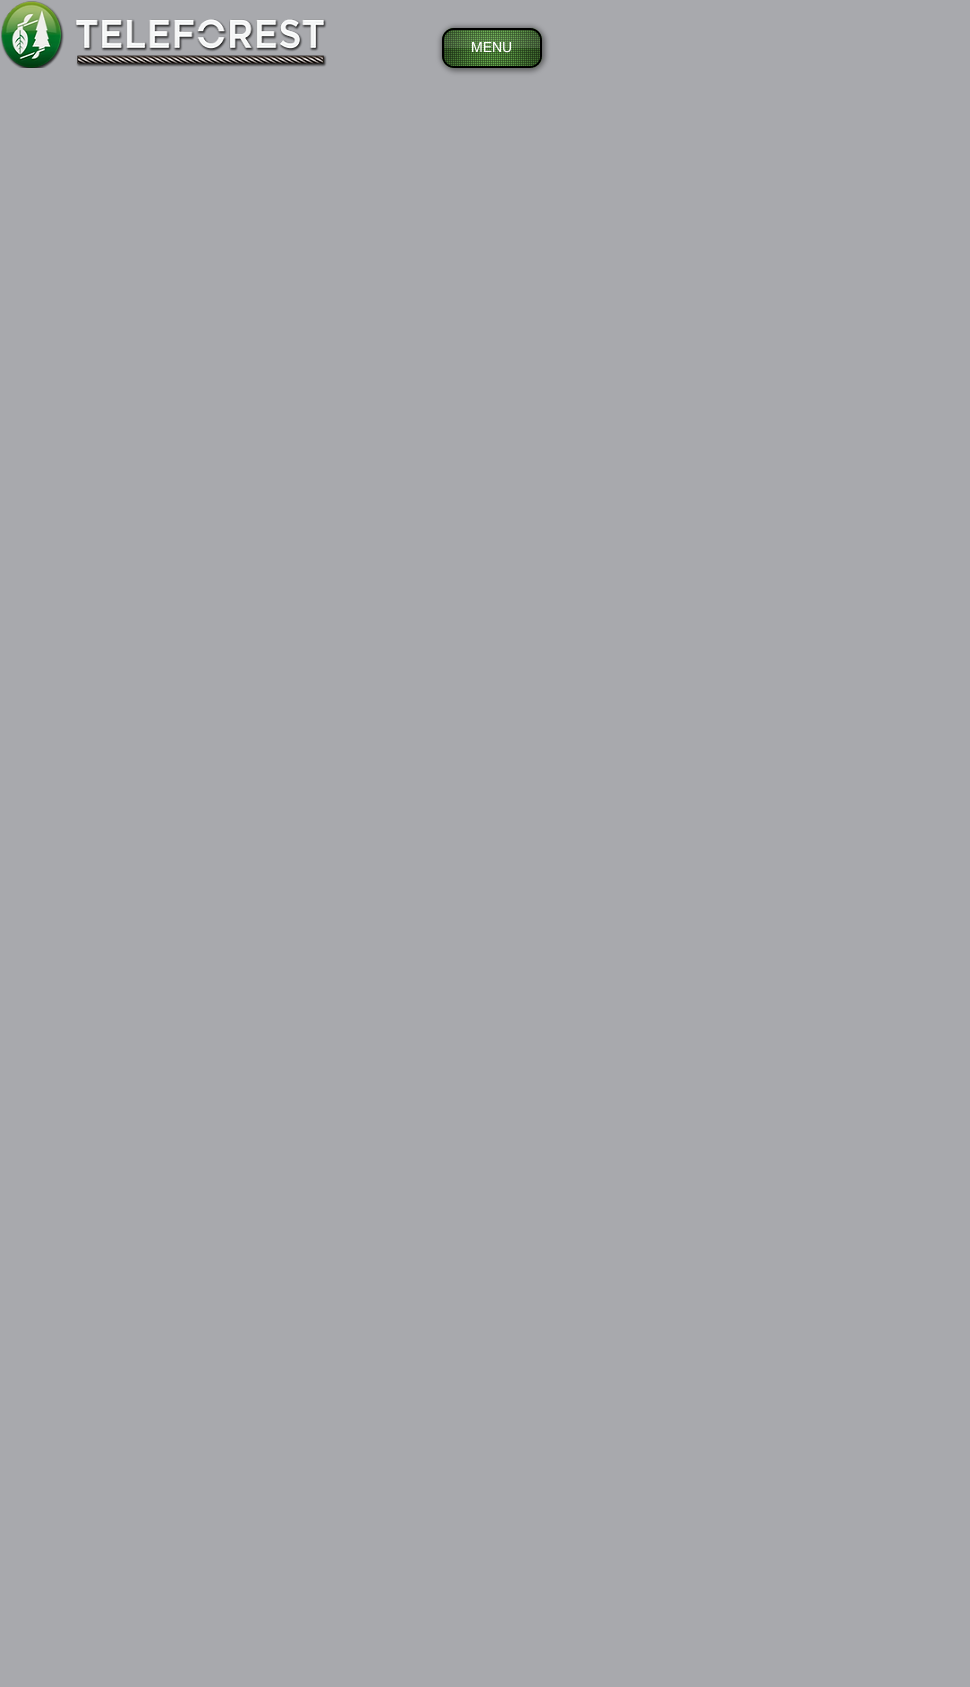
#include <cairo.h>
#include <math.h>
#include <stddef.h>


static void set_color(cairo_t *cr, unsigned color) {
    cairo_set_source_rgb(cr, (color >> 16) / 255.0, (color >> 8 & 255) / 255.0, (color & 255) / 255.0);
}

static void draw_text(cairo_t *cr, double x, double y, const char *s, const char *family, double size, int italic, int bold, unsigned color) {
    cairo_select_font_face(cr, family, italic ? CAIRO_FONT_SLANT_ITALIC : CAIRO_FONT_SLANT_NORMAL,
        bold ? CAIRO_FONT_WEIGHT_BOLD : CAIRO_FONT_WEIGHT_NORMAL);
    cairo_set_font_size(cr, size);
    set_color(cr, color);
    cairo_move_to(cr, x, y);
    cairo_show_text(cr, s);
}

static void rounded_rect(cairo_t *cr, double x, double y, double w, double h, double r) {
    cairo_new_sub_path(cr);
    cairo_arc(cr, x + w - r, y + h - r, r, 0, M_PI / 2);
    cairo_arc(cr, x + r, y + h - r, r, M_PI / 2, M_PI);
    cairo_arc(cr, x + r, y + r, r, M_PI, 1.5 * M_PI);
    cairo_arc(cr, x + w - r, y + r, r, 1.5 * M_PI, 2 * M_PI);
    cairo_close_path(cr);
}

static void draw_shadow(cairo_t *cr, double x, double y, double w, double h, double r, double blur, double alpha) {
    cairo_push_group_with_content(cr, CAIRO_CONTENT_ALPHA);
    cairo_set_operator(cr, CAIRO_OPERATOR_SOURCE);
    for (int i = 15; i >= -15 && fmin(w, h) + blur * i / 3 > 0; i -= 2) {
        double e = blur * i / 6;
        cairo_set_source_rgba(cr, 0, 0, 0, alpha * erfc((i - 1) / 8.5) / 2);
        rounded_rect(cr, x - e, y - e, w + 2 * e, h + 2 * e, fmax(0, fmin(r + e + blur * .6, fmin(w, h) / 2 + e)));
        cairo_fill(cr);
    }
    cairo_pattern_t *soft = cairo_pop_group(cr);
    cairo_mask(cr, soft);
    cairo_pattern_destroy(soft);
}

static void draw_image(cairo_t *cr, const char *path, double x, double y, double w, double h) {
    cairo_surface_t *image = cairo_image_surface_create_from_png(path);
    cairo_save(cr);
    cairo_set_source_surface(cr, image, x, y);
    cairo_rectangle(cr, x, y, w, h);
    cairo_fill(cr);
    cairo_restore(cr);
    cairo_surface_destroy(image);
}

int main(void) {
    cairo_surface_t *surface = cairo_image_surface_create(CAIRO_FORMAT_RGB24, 970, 1687);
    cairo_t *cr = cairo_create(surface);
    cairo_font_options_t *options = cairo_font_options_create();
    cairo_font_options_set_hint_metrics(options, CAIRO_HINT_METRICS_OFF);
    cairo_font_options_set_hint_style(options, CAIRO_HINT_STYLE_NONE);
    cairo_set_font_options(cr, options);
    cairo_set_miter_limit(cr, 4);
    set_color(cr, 0xA8A9AD);
    cairo_paint(cr);
    draw_image(cr, "assets/img1.png", 1, 1, 326, 67);
    set_color(cr, 0xFFFFFF);
    draw_shadow(cr, 443, 29, 100, 40, 12, 1.5, 0.3);
    set_color(cr, 0x000000);
    draw_shadow(cr, 442, 28, 102, 42, 13, 3, 0.6);
    set_color(cr, 0x68B04D);
    rounded_rect(cr, 442, 28, 100, 40, 12);
    cairo_fill(cr);
    draw_image(cr, "assets/img2.png", 442, 28, 100, 40);
    rounded_rect(cr, 443, 29, 98, 38, 11);
    set_color(cr, 0x000000);
    cairo_stroke(cr);
    draw_image(cr, "assets/img3.png", 444, 30, 48, 36);
    draw_image(cr, "assets/img5.png", 491, 30, 49, 36);
    draw_text(cr, 471, 52, "MENU", "helvetica", 14, 0, 0, 0xFFFFFF);
    draw_image(cr, "assets/img4.png", 444, 30, 96, 18);
    cairo_surface_write_to_png(surface, "output.png");
    cairo_font_options_destroy(options);
    cairo_destroy(cr);
    cairo_surface_destroy(surface);
    return 0;
}
